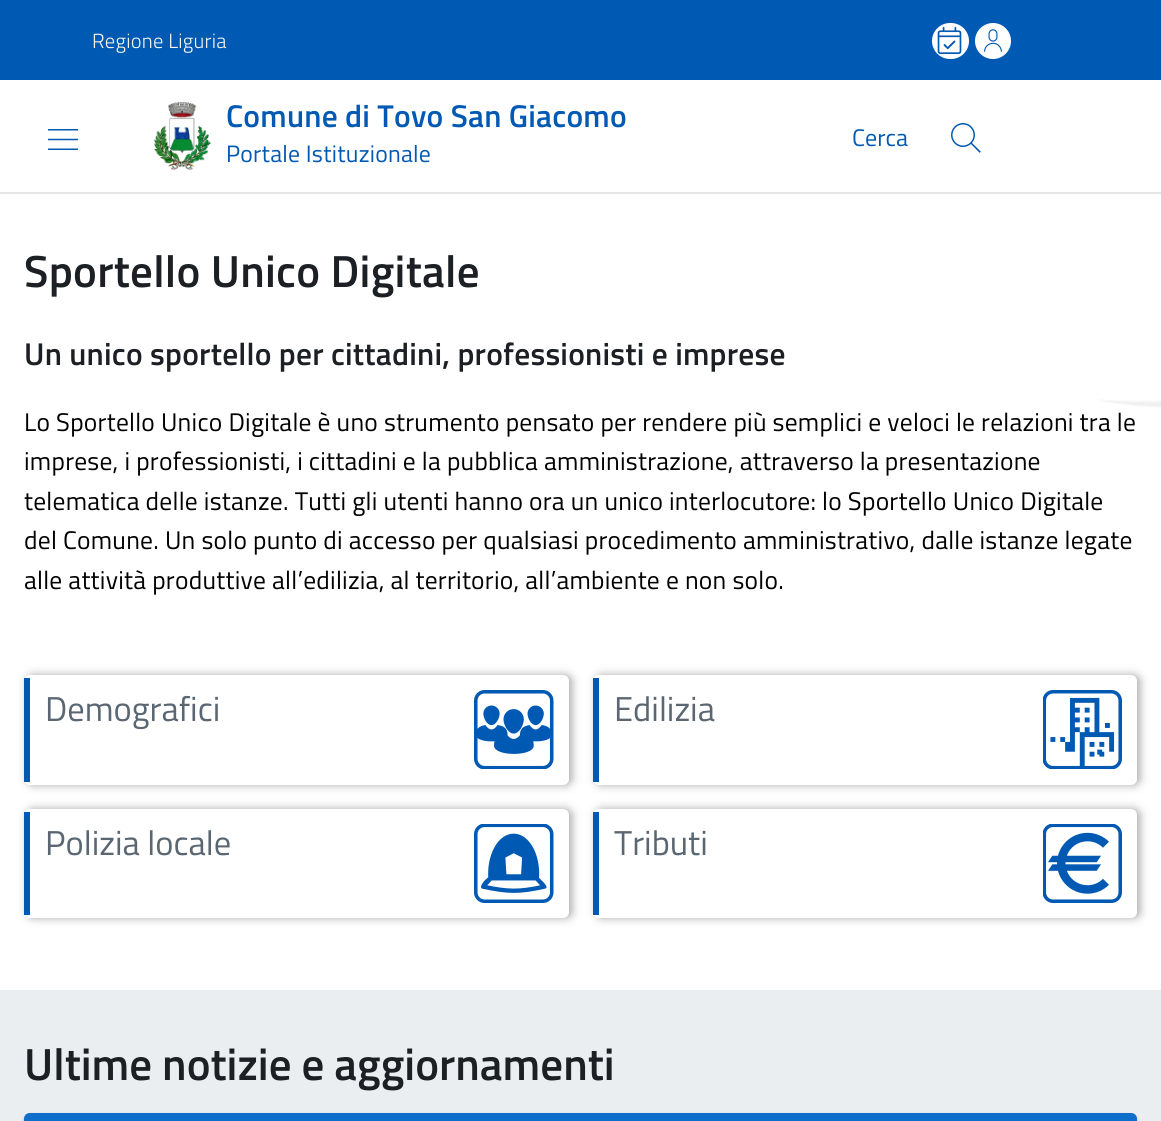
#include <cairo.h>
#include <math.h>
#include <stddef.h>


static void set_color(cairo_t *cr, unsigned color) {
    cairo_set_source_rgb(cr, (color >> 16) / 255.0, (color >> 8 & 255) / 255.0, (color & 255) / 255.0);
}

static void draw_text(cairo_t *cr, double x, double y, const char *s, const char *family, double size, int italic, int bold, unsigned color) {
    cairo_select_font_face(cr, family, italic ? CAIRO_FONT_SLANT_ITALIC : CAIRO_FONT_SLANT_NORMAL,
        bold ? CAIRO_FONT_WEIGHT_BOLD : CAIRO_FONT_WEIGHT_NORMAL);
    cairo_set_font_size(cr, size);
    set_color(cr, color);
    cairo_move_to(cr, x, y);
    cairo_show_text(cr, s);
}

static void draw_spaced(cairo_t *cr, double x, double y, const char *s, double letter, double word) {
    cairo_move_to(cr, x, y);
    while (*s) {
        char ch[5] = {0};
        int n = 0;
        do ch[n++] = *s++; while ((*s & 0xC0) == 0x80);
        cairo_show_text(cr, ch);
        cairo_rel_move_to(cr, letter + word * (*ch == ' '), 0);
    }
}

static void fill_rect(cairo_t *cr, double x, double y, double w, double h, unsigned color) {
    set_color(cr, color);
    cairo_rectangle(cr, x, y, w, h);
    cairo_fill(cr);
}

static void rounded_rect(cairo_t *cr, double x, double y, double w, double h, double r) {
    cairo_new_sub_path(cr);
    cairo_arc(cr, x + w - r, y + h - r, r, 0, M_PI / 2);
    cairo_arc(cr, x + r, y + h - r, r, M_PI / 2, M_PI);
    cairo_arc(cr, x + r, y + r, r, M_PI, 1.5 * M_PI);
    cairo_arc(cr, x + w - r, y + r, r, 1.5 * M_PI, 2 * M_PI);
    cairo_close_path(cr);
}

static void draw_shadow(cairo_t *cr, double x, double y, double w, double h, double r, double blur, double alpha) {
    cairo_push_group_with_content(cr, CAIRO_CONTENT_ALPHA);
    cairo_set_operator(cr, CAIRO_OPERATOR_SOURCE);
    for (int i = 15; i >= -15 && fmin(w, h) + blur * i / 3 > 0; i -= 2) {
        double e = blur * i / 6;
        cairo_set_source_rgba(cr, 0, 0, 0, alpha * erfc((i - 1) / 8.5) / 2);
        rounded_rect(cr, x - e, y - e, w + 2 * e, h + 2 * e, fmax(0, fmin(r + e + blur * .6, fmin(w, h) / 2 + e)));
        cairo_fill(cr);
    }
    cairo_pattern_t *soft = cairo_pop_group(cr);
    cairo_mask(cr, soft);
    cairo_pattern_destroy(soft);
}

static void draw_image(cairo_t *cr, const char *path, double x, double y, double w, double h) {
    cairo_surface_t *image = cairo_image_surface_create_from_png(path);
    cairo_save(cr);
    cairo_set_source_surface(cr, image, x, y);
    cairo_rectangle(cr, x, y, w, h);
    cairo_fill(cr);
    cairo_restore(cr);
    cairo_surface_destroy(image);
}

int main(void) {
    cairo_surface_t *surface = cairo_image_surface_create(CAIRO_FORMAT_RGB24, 1161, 1121);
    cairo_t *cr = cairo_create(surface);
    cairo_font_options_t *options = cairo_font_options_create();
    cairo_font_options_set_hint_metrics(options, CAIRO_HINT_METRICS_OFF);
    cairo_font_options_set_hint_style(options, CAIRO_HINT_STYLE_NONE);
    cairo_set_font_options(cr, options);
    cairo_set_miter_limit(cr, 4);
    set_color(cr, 0xFFFFFF);
    cairo_paint(cr);
    fill_rect(cr, 0, 0, 1161, 80, 0x0059B3);
    cairo_select_font_face(cr, "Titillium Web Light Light", CAIRO_FONT_SLANT_NORMAL, CAIRO_FONT_WEIGHT_NORMAL);
    cairo_set_font_size(cr, 20.5);
    set_color(cr, 0xF5F5F0);
    draw_spaced(cr, 92, 48, "Regione Liguria", 0.25, 0);
    set_color(cr, 0xFFFFFF);
    rounded_rect(cr, 932, 23, 37, 36, 18);
    cairo_fill(cr);
    draw_image(cr, "assets/img1.png", 937, 27, 25, 27);
    cairo_arc(cr, 993, 41, 18, 0, 2 * M_PI);
    cairo_fill(cr);
    draw_image(cr, "assets/img2.png", 984, 29, 18, 23);
    fill_rect(cr, 0, 192, 1161, 2, 0xE6E6E6);
    draw_image(cr, "assets/img3.png", 48, 129, 30, 21);
    draw_image(cr, "assets/img4.png", 154, 102, 57, 68);
    cairo_select_font_face(cr, "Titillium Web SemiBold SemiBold", CAIRO_FONT_SLANT_NORMAL, CAIRO_FONT_WEIGHT_NORMAL);
    cairo_set_font_size(cr, 31.5);
    set_color(cr, 0x0059B3);
    draw_spaced(cr, 226, 127, "Comune di Tovo San Giacomo", 0.22, 0);
    cairo_select_font_face(cr, "Titillium Web", CAIRO_FONT_SLANT_NORMAL, CAIRO_FONT_WEIGHT_NORMAL);
    cairo_set_font_size(cr, 23.75);
    draw_spaced(cr, 226, 162, "Portale Istituzionale", 0.25, 0);
    draw_text(cr, 852, 146, "Cerca", "Titillium Web", 24, 0, 0, 0x0059B3);
    draw_image(cr, "assets/img5.png", 951, 123, 30, 30);
    draw_image(cr, "assets/img6.png", 1099, 399, 62, 9);
    cairo_select_font_face(cr, "Titillium Web SemiBold SemiBold", CAIRO_FONT_SLANT_NORMAL, CAIRO_FONT_WEIGHT_NORMAL);
    cairo_set_font_size(cr, 45);
    set_color(cr, 0x1C2024);
    draw_spaced(cr, 24, 287, "Sportello Unico Digitale", 0.25, 0);
    cairo_set_font_size(cr, 31.5);
    draw_spaced(cr, 24, 365, "Un unico sportello per cittadini, professionisti e imprese", 0.22, 0);
    cairo_select_font_face(cr, "Titillium Web", CAIRO_FONT_SLANT_NORMAL, CAIRO_FONT_WEIGHT_NORMAL);
    cairo_set_font_size(cr, 25.5);
    set_color(cr, 0x000000);
    draw_spaced(cr, 24, 431, "Lo Sportello Unico Digitale è uno strumento pensato per rendere più semplici e veloci le relazioni tra le", 0.26, 0);
    draw_spaced(cr, 24, 470, "imprese, i professionisti, i cittadini e la pubblica amministrazione, attraverso la presentazione", 0.26, 0);
    draw_spaced(cr, 24, 510, "telematica delle istanze. Tutti gli utenti hanno ora un unico interlocutore: lo Sportello Unico Digitale", 0.26, 0);
    draw_spaced(cr, 24, 549, "del Comune. Un solo punto di accesso per qualsiasi procedimento amministrativo, dalle istanze legate", 0.26, 0);
    draw_spaced(cr, 24, 589, "alle attività produttive all’edilizia, al territorio, all’ambiente e non solo.", 0.26, 0);
    set_color(cr, 0xAAAAAA);
    draw_shadow(cr, 27, 675, 545, 110, 6, 4.5, 1);
    set_color(cr, 0xFFFFFF);
    rounded_rect(cr, 24, 675, 545, 110, 6);
    cairo_fill(cr);
    fill_rect(cr, 24, 678, 6, 104, 0x0059B3);
    draw_text(cr, 45, 721, "Demografici", "Titillium Web", 34.5, 0, 0, 0x5A6772);
    draw_image(cr, "assets/img7.png", 474, 690, 80, 79);
    set_color(cr, 0xAAAAAA);
    draw_shadow(cr, 596, 675, 544, 110, 6, 4.5, 1);
    set_color(cr, 0xFFFFFF);
    rounded_rect(cr, 593, 675, 544, 110, 6);
    cairo_fill(cr);
    fill_rect(cr, 593, 678, 6, 104, 0x0059B3);
    draw_text(cr, 614, 721, "Edilizia", "Titillium Web", 34.5, 0, 0, 0x5A6772);
    draw_image(cr, "assets/img8.png", 1043, 690, 79, 79);
    set_color(cr, 0xAAAAAA);
    draw_shadow(cr, 27, 809, 545, 109, 6, 4.5, 1);
    set_color(cr, 0xFFFFFF);
    rounded_rect(cr, 24, 809, 545, 109, 6);
    cairo_fill(cr);
    fill_rect(cr, 24, 812, 6, 103, 0x0059B3);
    draw_text(cr, 45, 855, "Polizia locale", "Titillium Web", 34.5, 0, 0, 0x5A6772);
    draw_image(cr, "assets/img9.png", 474, 824, 80, 79);
    set_color(cr, 0xAAAAAA);
    draw_shadow(cr, 596, 809, 544, 109, 6, 4.5, 1);
    set_color(cr, 0xFFFFFF);
    rounded_rect(cr, 593, 809, 544, 109, 6);
    cairo_fill(cr);
    fill_rect(cr, 593, 812, 6, 103, 0x0059B3);
    draw_text(cr, 614, 855, "Tributi", "Titillium Web", 34.5, 0, 0, 0x5A6772);
    draw_image(cr, "assets/img10.png", 1043, 824, 79, 79);
    fill_rect(cr, 0, 990, 1161, 131, 0xEBEEF0);
    draw_text(cr, 24, 1080, "Ultime notizie e aggiornamenti", "Titillium Web SemiBold SemiBold", 45, 0, 0, 0x1C2024);
    set_color(cr, 0x323232);
    draw_shadow(cr, 24, 1115, 1113, 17, 6, 1.5, 0.35);
    set_color(cr, 0x106ECB);
    cairo_new_path(cr);
    cairo_move_to(cr, 30, 1113);
    cairo_line_to(cr, 1131, 1113);
    cairo_curve_to(cr, 1134.5, 1113, 1137, 1115.5, 1137, 1119);
    cairo_line_to(cr, 1137, 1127);
    cairo_line_to(cr, 24, 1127);
    cairo_line_to(cr, 24, 1119);
    cairo_curve_to(cr, 24, 1115.5, 26.5, 1113, 30, 1113);
    cairo_close_path(cr);
    cairo_fill(cr);
    cairo_surface_write_to_png(surface, "output.png");
    cairo_font_options_destroy(options);
    cairo_destroy(cr);
    cairo_surface_destroy(surface);
    return 0;
}
